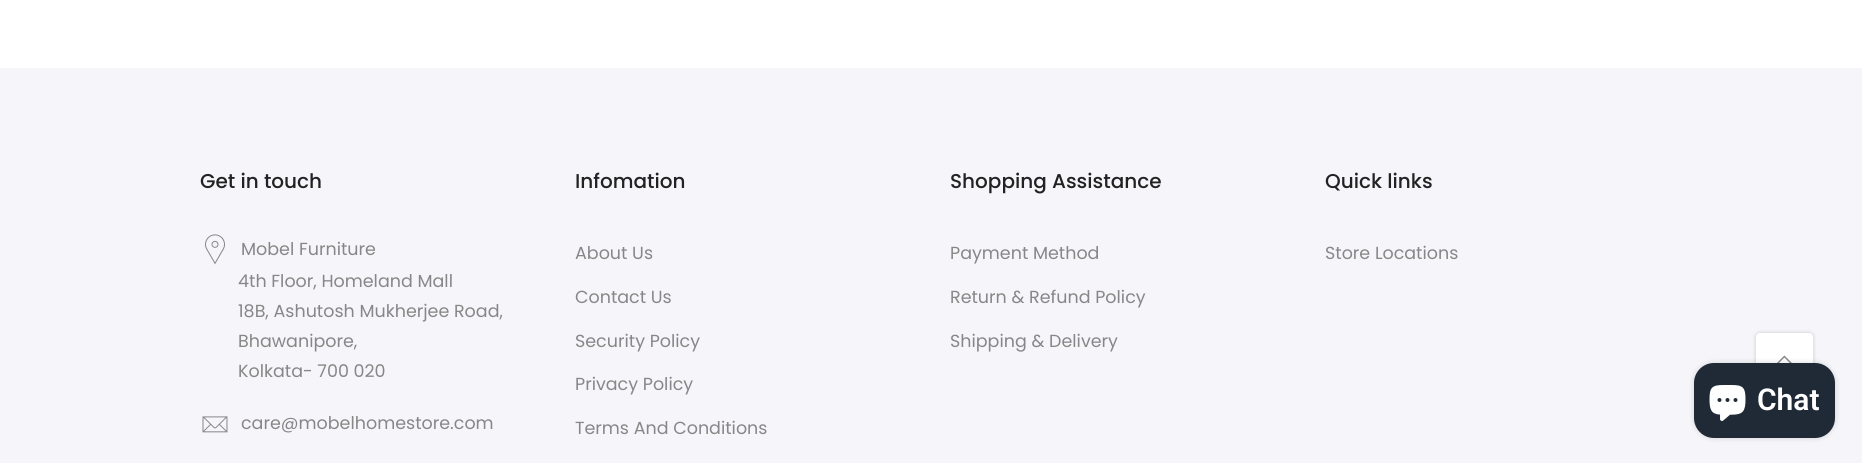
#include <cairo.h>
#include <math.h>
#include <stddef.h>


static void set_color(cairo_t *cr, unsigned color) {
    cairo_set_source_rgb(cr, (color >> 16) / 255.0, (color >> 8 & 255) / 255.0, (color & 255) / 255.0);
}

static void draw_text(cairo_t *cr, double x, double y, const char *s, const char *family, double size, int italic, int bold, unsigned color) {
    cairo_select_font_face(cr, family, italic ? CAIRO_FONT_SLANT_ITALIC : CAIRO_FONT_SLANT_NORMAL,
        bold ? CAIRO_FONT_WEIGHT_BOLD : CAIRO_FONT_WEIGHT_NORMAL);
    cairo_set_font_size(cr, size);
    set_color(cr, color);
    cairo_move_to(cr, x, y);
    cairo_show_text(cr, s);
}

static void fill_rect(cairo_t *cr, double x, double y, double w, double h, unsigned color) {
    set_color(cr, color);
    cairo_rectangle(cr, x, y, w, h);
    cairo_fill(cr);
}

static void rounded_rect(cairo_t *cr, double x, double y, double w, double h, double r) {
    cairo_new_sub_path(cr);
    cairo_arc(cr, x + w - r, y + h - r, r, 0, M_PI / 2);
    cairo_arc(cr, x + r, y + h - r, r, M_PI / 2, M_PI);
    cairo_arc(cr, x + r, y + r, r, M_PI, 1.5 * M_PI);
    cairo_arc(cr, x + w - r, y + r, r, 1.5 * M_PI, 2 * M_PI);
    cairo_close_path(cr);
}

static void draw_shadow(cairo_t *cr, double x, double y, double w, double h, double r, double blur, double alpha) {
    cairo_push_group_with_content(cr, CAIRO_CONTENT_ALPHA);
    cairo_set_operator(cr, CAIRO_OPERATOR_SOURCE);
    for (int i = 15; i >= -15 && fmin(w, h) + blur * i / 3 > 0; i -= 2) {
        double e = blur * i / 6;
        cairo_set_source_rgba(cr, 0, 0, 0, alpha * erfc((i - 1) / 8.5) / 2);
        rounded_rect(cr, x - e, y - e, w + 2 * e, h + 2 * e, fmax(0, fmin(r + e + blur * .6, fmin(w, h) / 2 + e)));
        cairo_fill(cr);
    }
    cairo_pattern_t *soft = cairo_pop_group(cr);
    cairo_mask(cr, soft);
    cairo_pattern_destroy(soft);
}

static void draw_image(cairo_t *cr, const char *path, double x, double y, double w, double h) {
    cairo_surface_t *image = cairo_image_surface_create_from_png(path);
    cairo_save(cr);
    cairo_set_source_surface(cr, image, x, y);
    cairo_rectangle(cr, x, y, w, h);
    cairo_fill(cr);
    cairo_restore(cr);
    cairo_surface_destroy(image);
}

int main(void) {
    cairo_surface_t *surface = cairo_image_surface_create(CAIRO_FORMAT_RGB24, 1862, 463);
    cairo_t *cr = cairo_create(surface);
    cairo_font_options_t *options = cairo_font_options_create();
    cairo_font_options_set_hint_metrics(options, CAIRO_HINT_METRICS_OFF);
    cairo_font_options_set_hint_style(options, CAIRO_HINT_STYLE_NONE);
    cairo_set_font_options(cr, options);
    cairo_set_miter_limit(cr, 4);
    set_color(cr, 0xFFFFFF);
    cairo_paint(cr);
    fill_rect(cr, 0, 68, 1862, 395, 0xF6F6FA);
    draw_text(cr, 200, 188, "Get in touch", "Poppins Medium", 20, 0, 0, 0x222222);
    draw_image(cr, "assets/img1.png", 205, 234, 20, 31);
    draw_text(cr, 241, 255, "Mobel Furniture", "Poppins", 17.5, 0, 0, 0x878787);
    draw_text(cr, 238, 287, "4th Floor, Homeland Mall", "Poppins", 17.5, 0, 0, 0x878787);
    draw_text(cr, 238, 317, "18B, Ashutosh Mukherjee Road,", "Poppins", 17.5, 0, 0, 0x878787);
    draw_text(cr, 238, 347, "Bhawanipore,", "Poppins", 17.5, 0, 0, 0x878787);
    draw_text(cr, 238, 377, "Kolkata- 700 020", "Poppins", 17.5, 0, 0, 0x878787);
    draw_image(cr, "assets/img2.png", 202, 416, 26, 17);
    draw_text(cr, 241, 429, "care@mobelhomestore.com", "Poppins", 17.5, 0, 0, 0x878787);
    draw_text(cr, 575, 188, "Infomation", "Poppins Medium", 20, 0, 0, 0x222222);
    draw_text(cr, 575, 259, "About Us", "Poppins", 17.5, 0, 0, 0x878787);
    draw_text(cr, 575, 303, "Contact Us", "Poppins", 17.5, 0, 0, 0x878787);
    draw_text(cr, 575, 347, "Security Policy", "Poppins", 17.5, 0, 0, 0x878787);
    draw_text(cr, 575, 390, "Privacy Policy", "Poppins", 17.5, 0, 0, 0x878787);
    draw_text(cr, 575, 434, "Terms And Conditions", "Poppins", 17.5, 0, 0, 0x878787);
    draw_text(cr, 950, 188, "Shopping Assistance", "Poppins Medium", 20, 0, 0, 0x222222);
    draw_text(cr, 950, 259, "Payment Method", "Poppins", 17.5, 0, 0, 0x878787);
    draw_text(cr, 950, 303, "Return & Refund Policy", "Poppins", 17.5, 0, 0, 0x878787);
    draw_text(cr, 950, 347, "Shipping & Delivery", "Poppins", 17.5, 0, 0, 0x878787);
    draw_text(cr, 1325, 188, "Quick links", "Poppins Medium", 20, 0, 0, 0x222222);
    draw_text(cr, 1325, 259, "Store Locations", "Poppins", 17.5, 0, 0, 0x878787);
    set_color(cr, 0x000000);
    draw_shadow(cr, 1756, 333, 57, 56, 4, 2, 0.2);
    set_color(cr, 0xFFFFFF);
    rounded_rect(cr, 1756, 333, 57, 56, 4);
    cairo_fill(cr);
    draw_image(cr, "assets/img3.png", 1777, 355, 15, 8);
    set_color(cr, 0x000000);
    draw_shadow(cr, 1694, 363, 141, 75, 20, 3, 0.15);
    set_color(cr, 0x202A36);
    rounded_rect(cr, 1694, 363, 141, 75, 20);
    cairo_fill(cr);
    draw_image(cr, "assets/img4.png", 1709, 385, 37, 36);
    draw_text(cr, 1757, 410, "Chat", "Roboto SemiBold", 30, 0, 0, 0xFFFFFF);
    cairo_surface_write_to_png(surface, "output.png");
    cairo_font_options_destroy(options);
    cairo_destroy(cr);
    cairo_surface_destroy(surface);
    return 0;
}
